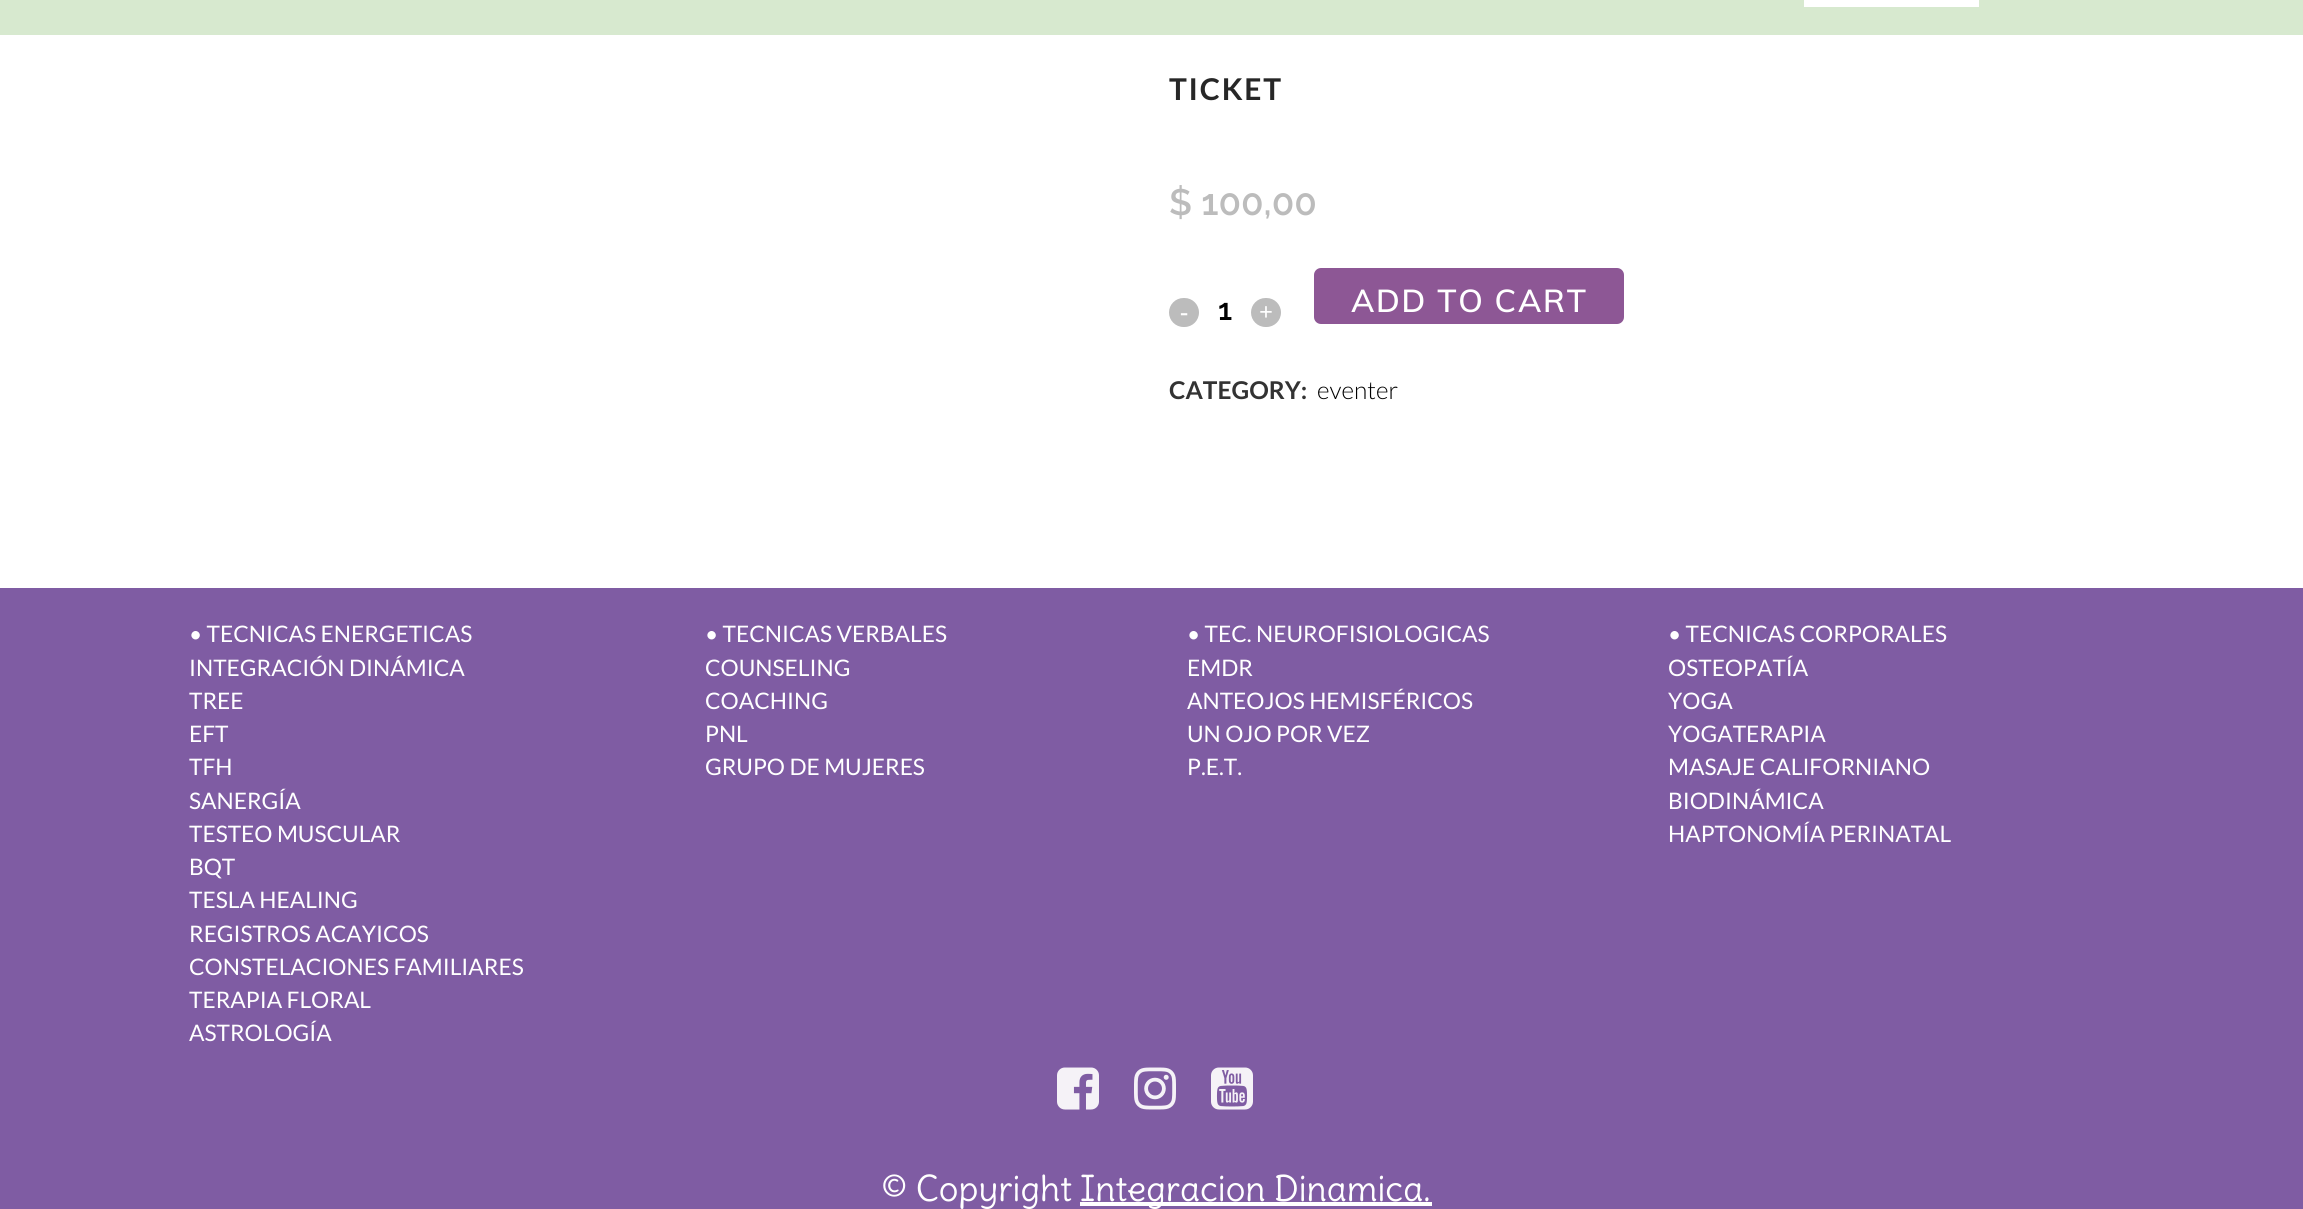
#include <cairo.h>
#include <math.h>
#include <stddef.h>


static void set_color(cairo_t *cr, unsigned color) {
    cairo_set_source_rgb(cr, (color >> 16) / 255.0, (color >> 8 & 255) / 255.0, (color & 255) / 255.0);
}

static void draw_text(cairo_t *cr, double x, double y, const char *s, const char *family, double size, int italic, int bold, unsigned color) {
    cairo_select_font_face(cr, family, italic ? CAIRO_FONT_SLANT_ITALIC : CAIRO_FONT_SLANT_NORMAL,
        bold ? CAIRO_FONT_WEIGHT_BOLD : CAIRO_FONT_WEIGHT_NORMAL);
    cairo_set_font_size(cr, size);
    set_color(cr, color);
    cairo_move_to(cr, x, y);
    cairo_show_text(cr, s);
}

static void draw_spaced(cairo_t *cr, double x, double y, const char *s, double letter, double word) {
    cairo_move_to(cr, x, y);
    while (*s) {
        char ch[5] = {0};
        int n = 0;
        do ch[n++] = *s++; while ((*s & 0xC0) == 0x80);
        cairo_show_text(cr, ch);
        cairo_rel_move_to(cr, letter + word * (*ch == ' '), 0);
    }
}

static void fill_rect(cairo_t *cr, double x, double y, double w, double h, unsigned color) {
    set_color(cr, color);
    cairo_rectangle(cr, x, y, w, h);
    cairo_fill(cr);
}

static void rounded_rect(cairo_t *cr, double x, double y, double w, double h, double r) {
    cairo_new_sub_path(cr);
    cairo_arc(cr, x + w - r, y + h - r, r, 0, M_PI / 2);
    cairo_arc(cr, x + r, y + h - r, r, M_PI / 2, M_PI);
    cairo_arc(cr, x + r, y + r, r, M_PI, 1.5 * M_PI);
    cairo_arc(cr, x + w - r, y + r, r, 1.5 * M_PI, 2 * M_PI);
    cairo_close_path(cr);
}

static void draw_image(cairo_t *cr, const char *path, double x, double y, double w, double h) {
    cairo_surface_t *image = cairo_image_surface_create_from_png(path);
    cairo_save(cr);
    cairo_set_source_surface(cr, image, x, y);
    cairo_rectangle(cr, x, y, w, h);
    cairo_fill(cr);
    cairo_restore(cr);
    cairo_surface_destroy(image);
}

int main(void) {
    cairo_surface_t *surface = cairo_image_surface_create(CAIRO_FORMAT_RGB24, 2303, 1209);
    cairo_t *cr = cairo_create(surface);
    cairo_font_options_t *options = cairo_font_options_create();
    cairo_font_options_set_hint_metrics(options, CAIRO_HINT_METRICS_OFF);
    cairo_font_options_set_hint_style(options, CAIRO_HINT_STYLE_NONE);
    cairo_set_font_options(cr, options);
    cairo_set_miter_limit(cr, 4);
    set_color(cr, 0xFFFFFF);
    cairo_paint(cr);
    fill_rect(cr, 0, 0, 2303, 35, 0xD7E9CF);
    fill_rect(cr, 1804, 0, 175, 7, 0xFFFFFF);
    cairo_select_font_face(cr, "Lato", CAIRO_FONT_SLANT_NORMAL, CAIRO_FONT_WEIGHT_BOLD);
    cairo_set_font_size(cr, 30);
    set_color(cr, 0x272727);
    draw_spaced(cr, 1169, 100, "TICKET", 1.75, 0);
    draw_text(cr, 1169, 215, "$ 100,00", "Raleway SemiBold", 36.75, 0, 0, 0xBCBCBC);
    rounded_rect(cr, 1169, 298, 30, 29, 14.5);
    cairo_fill(cr);
    draw_text(cr, 1180, 320, "-", "Liberation Serif", 24.5, 0, 1, 0xFFFFFF);
    draw_text(cr, 1218, 320, "1", "Raleway SemiBold", 30, 0, 0, 0x000000);
    set_color(cr, 0xBCBCBC);
    rounded_rect(cr, 1251, 298, 30, 29, 14.5);
    cairo_fill(cr);
    draw_text(cr, 1259, 320, "+", "Liberation Serif", 24.5, 0, 1, 0xFFFFFF);
    set_color(cr, 0x8D5795);
    rounded_rect(cr, 1315, 269, 308, 54, 6);
    cairo_fill_preserve(cr);
    cairo_stroke(cr);
    cairo_select_font_face(cr, "Muli SemiBold", CAIRO_FONT_SLANT_NORMAL, CAIRO_FONT_WEIGHT_NORMAL);
    cairo_set_font_size(cr, 31.5);
    set_color(cr, 0xFFFFFF);
    draw_spaced(cr, 1351, 312, "ADD TO CART", 1.75, 0);
    draw_text(cr, 1169, 399, "CATEGORY:", "Lato", 24.5, 0, 1, 0x333333);
    draw_text(cr, 1317, 399, "eventer", "Lato Light", 24.5, 0, 0, 0x000000);
    fill_rect(cr, 0, 588, 2303, 621, 0x7F5CA3);
    draw_text(cr, 189, 642, "• TECNICAS ENERGETICAS", "Lato", 22.75, 0, 0, 0xFFFFFF);
    draw_text(cr, 189, 676, "INTEGRACIÓN DINÁMICA", "Lato", 22.75, 0, 0, 0xFFFFFF);
    draw_text(cr, 189, 709, "TREE", "Lato", 22.75, 0, 0, 0xFFFFFF);
    draw_text(cr, 189, 742, "EFT", "Lato", 22.75, 0, 0, 0xFFFFFF);
    draw_text(cr, 189, 775, "TFH", "Lato", 22.75, 0, 0, 0xFFFFFF);
    draw_text(cr, 189, 809, "SANERGÍA", "Lato", 22.75, 0, 0, 0xFFFFFF);
    draw_text(cr, 189, 842, "TESTEO MUSCULAR", "Lato", 22.75, 0, 0, 0xFFFFFF);
    draw_text(cr, 189, 875, "BQT", "Lato", 22.75, 0, 0, 0xFFFFFF);
    draw_text(cr, 189, 908, "TESLA HEALING", "Lato", 22.75, 0, 0, 0xFFFFFF);
    draw_text(cr, 189, 942, "REGISTROS ACAYICOS", "Lato", 22.75, 0, 0, 0xFFFFFF);
    draw_text(cr, 189, 975, "CONSTELACIONES FAMILIARES", "Lato", 22.75, 0, 0, 0xFFFFFF);
    draw_text(cr, 189, 1008, "TERAPIA FLORAL", "Lato", 22.75, 0, 0, 0xFFFFFF);
    draw_text(cr, 189, 1041, "ASTROLOGÍA", "Lato", 22.75, 0, 0, 0xFFFFFF);
    draw_text(cr, 705, 642, "• TECNICAS VERBALES", "Lato", 22.75, 0, 0, 0xFFFFFF);
    draw_text(cr, 705, 676, "COUNSELING", "Lato", 22.75, 0, 0, 0xFFFFFF);
    draw_text(cr, 705, 709, "COACHING", "Lato", 22.75, 0, 0, 0xFFFFFF);
    draw_text(cr, 705, 742, "PNL", "Lato", 22.75, 0, 0, 0xFFFFFF);
    draw_text(cr, 705, 775, "GRUPO DE MUJERES", "Lato", 22.75, 0, 0, 0xFFFFFF);
    draw_text(cr, 1187, 642, "• TEC. NEUROFISIOLOGICAS", "Lato", 22.75, 0, 0, 0xFFFFFF);
    draw_text(cr, 1187, 676, "EMDR", "Lato", 22.75, 0, 0, 0xFFFFFF);
    draw_text(cr, 1187, 709, "ANTEOJOS HEMISFÉRICOS", "Lato", 22.75, 0, 0, 0xFFFFFF);
    draw_text(cr, 1187, 742, "UN OJO POR VEZ", "Lato", 22.75, 0, 0, 0xFFFFFF);
    draw_text(cr, 1187, 775, "P.E.T.", "Lato", 22.75, 0, 0, 0xFFFFFF);
    draw_text(cr, 1668, 642, "• TECNICAS CORPORALES", "Lato", 22.75, 0, 0, 0xFFFFFF);
    draw_text(cr, 1668, 676, "OSTEOPATÍA", "Lato", 22.75, 0, 0, 0xFFFFFF);
    draw_text(cr, 1668, 709, "YOGA", "Lato", 22.75, 0, 0, 0xFFFFFF);
    draw_text(cr, 1668, 742, "YOGATERAPIA", "Lato", 22.75, 0, 0, 0xFFFFFF);
    draw_text(cr, 1668, 775, "MASAJE CALIFORNIANO", "Lato", 22.75, 0, 0, 0xFFFFFF);
    draw_text(cr, 1668, 809, "BIODINÁMICA", "Lato", 22.75, 0, 0, 0xFFFFFF);
    draw_text(cr, 1668, 842, "HAPTONOMÍA PERINATAL", "Lato", 22.75, 0, 0, 0xFFFFFF);
    draw_image(cr, "assets/img1.png", 1057, 1067, 42, 43);
    draw_image(cr, "assets/img2.png", 1134, 1067, 42, 43);
    draw_image(cr, "assets/img3.png", 1211, 1067, 42, 43);
    draw_text(cr, 881, 1201, "© Copyright", "Delius", 35, 0, 0, 0xFFFFFF);
    fill_rect(cr, 1080, 1202, 352, 4, 0xFFFFFF);
    draw_text(cr, 1080, 1201, "Integracion Dinamica.", "Delius", 35, 0, 0, 0xFFFFFF);
    cairo_surface_write_to_png(surface, "output.png");
    cairo_font_options_destroy(options);
    cairo_destroy(cr);
    cairo_surface_destroy(surface);
    return 0;
}
